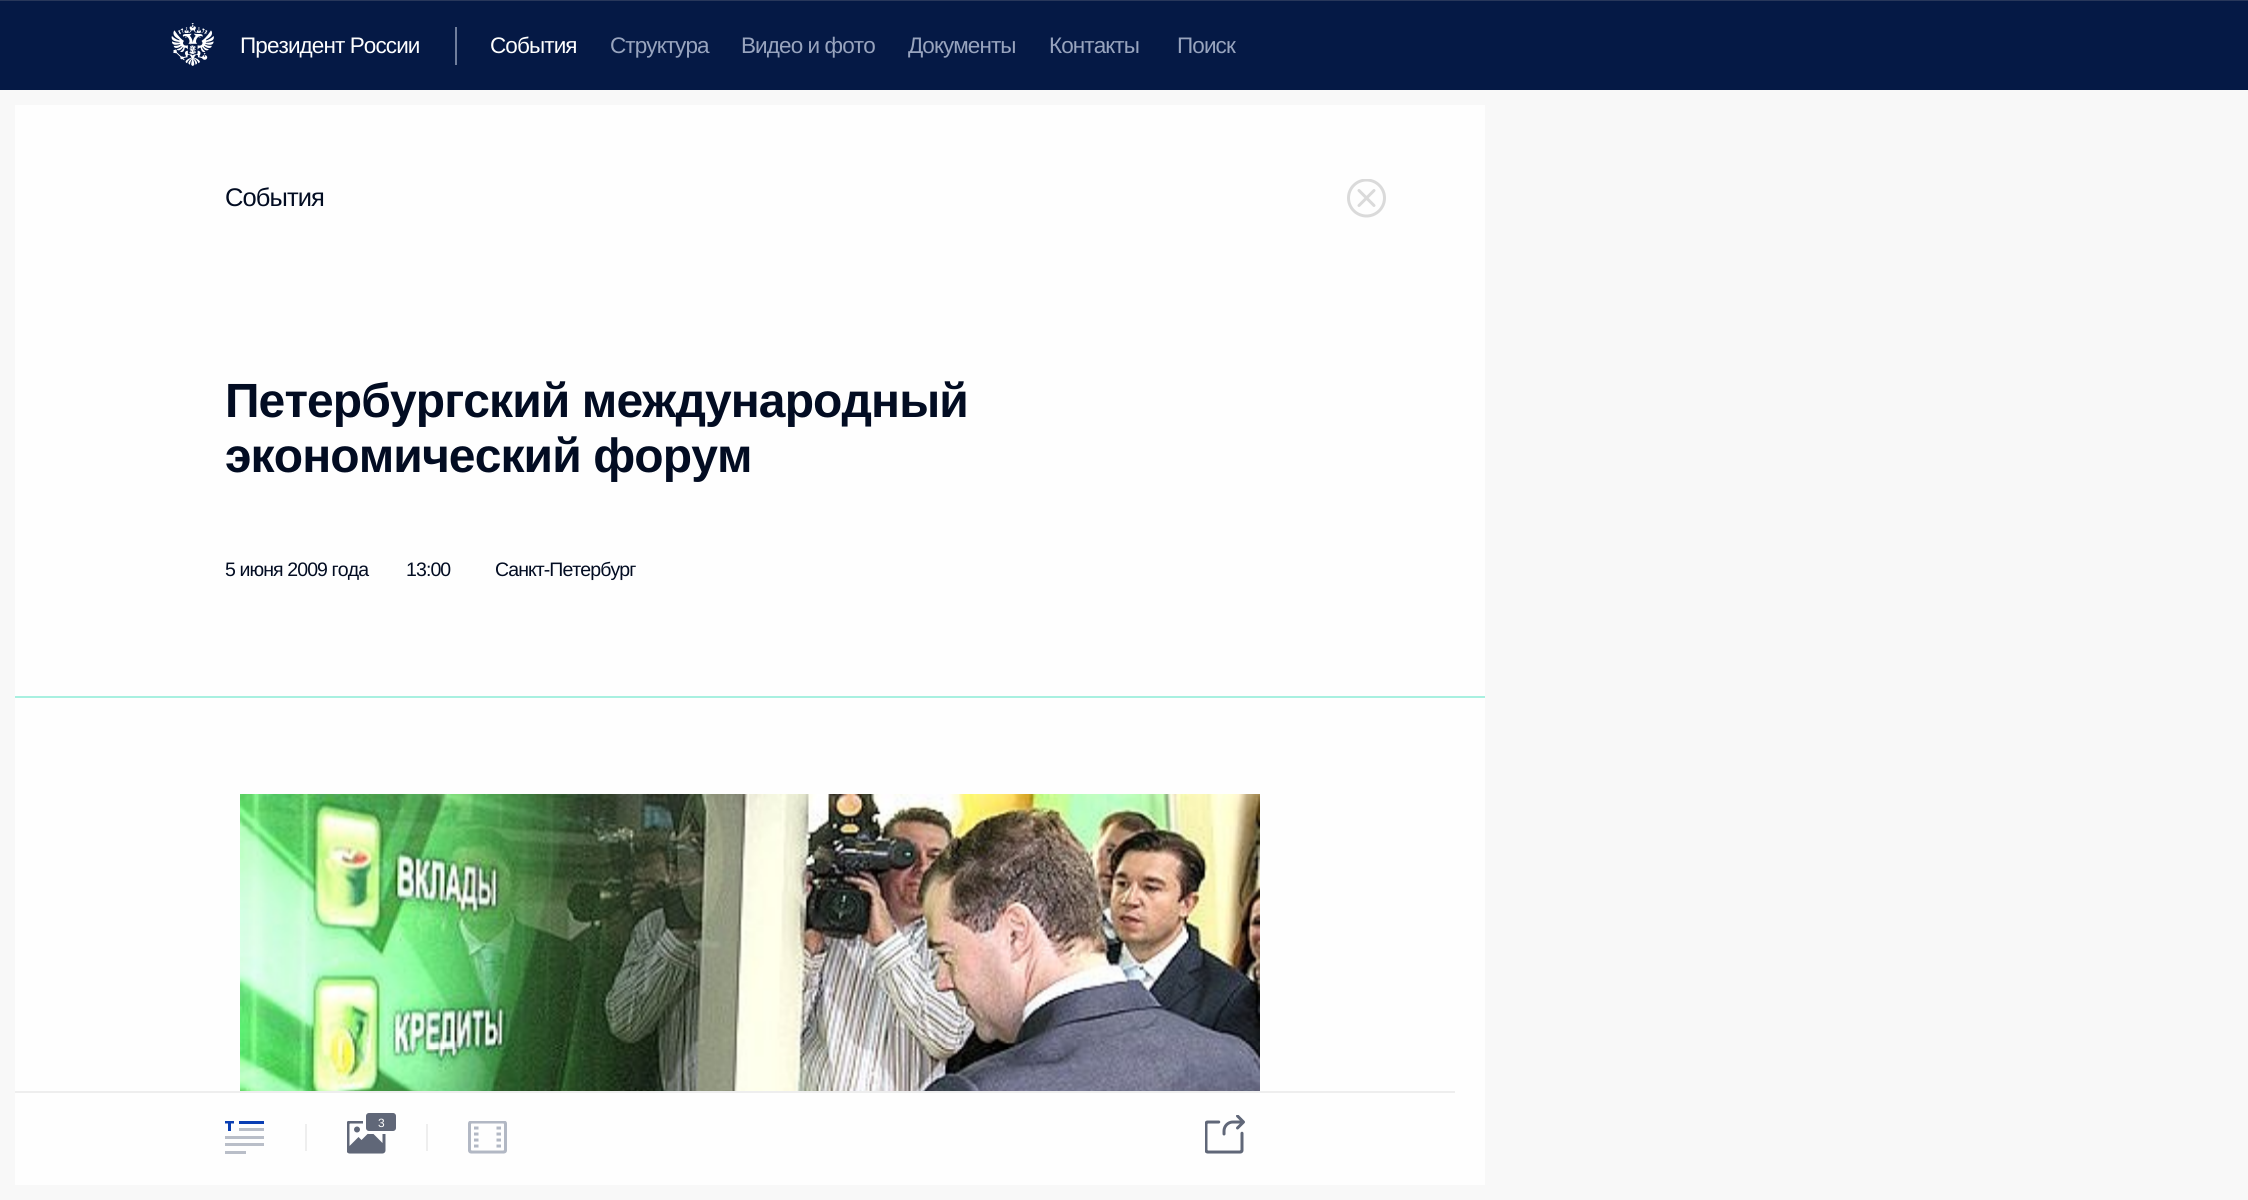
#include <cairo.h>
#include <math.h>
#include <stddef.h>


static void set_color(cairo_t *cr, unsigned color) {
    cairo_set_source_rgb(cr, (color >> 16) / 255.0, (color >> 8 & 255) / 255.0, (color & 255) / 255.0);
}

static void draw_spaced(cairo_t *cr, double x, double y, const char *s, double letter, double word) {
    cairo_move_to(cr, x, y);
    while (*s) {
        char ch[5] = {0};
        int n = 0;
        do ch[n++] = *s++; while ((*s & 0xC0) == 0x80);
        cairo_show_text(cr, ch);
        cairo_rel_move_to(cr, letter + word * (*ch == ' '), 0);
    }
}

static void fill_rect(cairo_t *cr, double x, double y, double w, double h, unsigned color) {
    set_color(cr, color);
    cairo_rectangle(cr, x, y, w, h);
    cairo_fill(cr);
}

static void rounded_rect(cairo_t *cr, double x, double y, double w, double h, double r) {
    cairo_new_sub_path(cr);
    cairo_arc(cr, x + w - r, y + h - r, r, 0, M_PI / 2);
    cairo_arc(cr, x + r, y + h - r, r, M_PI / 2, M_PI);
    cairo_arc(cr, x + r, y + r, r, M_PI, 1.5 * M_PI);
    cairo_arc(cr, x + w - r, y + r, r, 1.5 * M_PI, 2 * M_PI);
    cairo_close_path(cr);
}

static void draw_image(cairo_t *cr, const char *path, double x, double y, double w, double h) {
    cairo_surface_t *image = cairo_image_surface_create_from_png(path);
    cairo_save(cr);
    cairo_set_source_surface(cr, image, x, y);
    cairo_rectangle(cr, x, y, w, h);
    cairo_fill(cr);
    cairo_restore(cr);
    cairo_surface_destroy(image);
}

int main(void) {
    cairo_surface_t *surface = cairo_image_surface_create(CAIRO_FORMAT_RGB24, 2248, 1200);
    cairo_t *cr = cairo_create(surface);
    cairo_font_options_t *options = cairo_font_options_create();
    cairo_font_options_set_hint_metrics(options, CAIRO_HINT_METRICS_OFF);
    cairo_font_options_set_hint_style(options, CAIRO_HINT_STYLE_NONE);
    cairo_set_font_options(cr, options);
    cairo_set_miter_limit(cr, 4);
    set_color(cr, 0xF8F8F8);
    cairo_paint(cr);
    fill_rect(cr, 0, 0, 2248, 1, 0x28375A);
    fill_rect(cr, 0, 1, 2248, 89, 0x051945);
    draw_image(cr, "assets/img1.png", 171, 23, 43, 43);
    cairo_select_font_face(cr, "Liberation Sans", CAIRO_FONT_SLANT_NORMAL, CAIRO_FONT_WEIGHT_NORMAL);
    cairo_set_font_size(cr, 22.5);
    set_color(cr, 0xFEFEFE);
    draw_spaced(cr, 240, 53, "Президент России", -0.9, 0);
    fill_rect(cr, 455, 27, 2, 38, 0x707E9C);
    set_color(cr, 0xFEFEFE);
    draw_spaced(cr, 490, 53, "События", -0.9, 0);
    set_color(cr, 0x98A4BE);
    draw_spaced(cr, 610, 53, "Структура", -0.9, 0);
    draw_spaced(cr, 741, 53, "Видео и фото", -0.9, 0);
    draw_spaced(cr, 908, 53, "Документы", -0.9, 0);
    draw_spaced(cr, 1049, 53, "Контакты", -0.9, 0);
    draw_spaced(cr, 1177, 53, "Поиск", -0.9, 0);
    fill_rect(cr, 15, 105, 1470, 1080, 0xFEFEFE);
    fill_rect(cr, 15, 696, 1470, 2, 0xA8F0E0);
    cairo_set_font_size(cr, 25.5);
    set_color(cr, 0x020C22);
    draw_spaced(cr, 225, 206, "События", -0.9, 0);
    cairo_select_font_face(cr, "Liberation Sans", CAIRO_FONT_SLANT_NORMAL, CAIRO_FONT_WEIGHT_BOLD);
    cairo_set_font_size(cr, 48);
    draw_spaced(cr, 225, 417, "Петербургский международный", -0.9, 0);
    draw_spaced(cr, 225, 472, "экономический форум", -0.9, 0);
    cairo_select_font_face(cr, "Liberation Sans", CAIRO_FONT_SLANT_NORMAL, CAIRO_FONT_WEIGHT_NORMAL);
    cairo_set_font_size(cr, 19.5);
    draw_spaced(cr, 225, 576, "5 июня 2009 года", -0.9, 0);
    draw_spaced(cr, 406, 576, "13:00", -0.9, 0);
    draw_spaced(cr, 495, 576, "Санкт-Петербург", -0.9, 0);
    draw_image(cr, "assets/img2.png", 240, 794, 1020, 297);
    draw_image(cr, "assets/img3.png", 1347, 179, 39, 39);
    fill_rect(cr, 15, 1091, 1440, 2, 0xEEEEEE);
    draw_image(cr, "assets/img4.png", 225, 1121, 39, 33);
    fill_rect(cr, 305, 1124, 2, 27, 0xEEEEEE);
    draw_image(cr, "assets/img5.png", 347, 1121, 39, 33);
    set_color(cr, 0x606778);
    rounded_rect(cr, 364.5, 1111.5, 33, 21, 4.5);
    cairo_fill_preserve(cr);
    set_color(cr, 0xFEFEFE);
    cairo_set_line_width(cr, 3);
    cairo_stroke(cr);
    cairo_set_font_size(cr, 12);
    draw_spaced(cr, 378, 1127, "3", -0.9, 0);
    fill_rect(cr, 426, 1124, 2, 27, 0xEEEEEE);
    draw_image(cr, "assets/img6.png", 468, 1121, 39, 33);
    draw_image(cr, "assets/img7.png", 1205, 1115, 40, 39);
    cairo_surface_write_to_png(surface, "output.png");
    cairo_font_options_destroy(options);
    cairo_destroy(cr);
    cairo_surface_destroy(surface);
    return 0;
}
